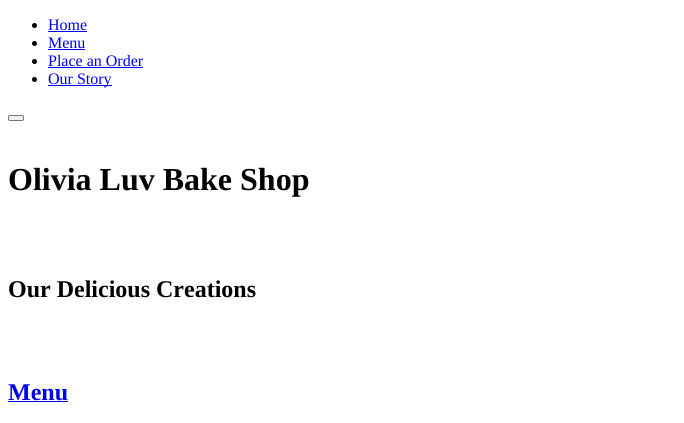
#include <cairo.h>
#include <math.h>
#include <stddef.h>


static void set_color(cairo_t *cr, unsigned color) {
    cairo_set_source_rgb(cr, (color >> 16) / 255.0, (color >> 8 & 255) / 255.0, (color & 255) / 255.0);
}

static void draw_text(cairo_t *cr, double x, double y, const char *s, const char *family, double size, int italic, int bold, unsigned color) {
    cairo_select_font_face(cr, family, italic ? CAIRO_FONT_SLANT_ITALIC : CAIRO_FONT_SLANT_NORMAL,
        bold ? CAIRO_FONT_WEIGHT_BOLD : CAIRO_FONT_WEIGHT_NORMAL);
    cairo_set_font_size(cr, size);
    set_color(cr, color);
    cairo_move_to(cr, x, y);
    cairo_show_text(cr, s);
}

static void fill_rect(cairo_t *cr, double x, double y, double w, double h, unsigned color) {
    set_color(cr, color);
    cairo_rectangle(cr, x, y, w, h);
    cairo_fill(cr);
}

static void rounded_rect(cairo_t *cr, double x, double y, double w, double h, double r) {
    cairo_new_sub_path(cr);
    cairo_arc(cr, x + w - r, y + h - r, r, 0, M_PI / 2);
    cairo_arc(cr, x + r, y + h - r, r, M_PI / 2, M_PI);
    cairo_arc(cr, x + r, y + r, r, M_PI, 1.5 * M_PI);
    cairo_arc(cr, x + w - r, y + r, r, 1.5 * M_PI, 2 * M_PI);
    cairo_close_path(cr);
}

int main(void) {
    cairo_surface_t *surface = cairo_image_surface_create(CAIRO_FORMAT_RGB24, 684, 423);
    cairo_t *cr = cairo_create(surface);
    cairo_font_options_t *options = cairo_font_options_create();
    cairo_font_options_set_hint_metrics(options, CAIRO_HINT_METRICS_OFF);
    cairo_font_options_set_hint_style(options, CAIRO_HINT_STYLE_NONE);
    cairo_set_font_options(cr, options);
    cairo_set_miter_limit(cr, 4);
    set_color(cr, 0xFFFFFF);
    cairo_paint(cr);
    set_color(cr, 0x000000);
    cairo_arc(cr, 34.5, 25.5, 2.5, 0, 2 * M_PI);
    cairo_fill(cr);
    draw_text(cr, 48, 30, "Home", "Liberation Serif", 16, 0, 0, 0x0000EE);
    fill_rect(cr, 48, 31, 39, 1, 0x0000EE);
    set_color(cr, 0x000000);
    cairo_new_path(cr);
    cairo_arc(cr, 34.5, 43.5, 2.5, 0, 2 * M_PI);
    cairo_fill(cr);
    draw_text(cr, 48, 48, "Menu", "Liberation Serif", 16, 0, 0, 0x0000EE);
    fill_rect(cr, 48, 49, 37, 1, 0x0000EE);
    set_color(cr, 0x000000);
    cairo_new_path(cr);
    cairo_arc(cr, 34.5, 61.5, 2.5, 0, 2 * M_PI);
    cairo_fill(cr);
    draw_text(cr, 48, 66, "Place an Order", "Liberation Serif", 16, 0, 0, 0x0000EE);
    fill_rect(cr, 48, 67, 95, 1, 0x0000EE);
    set_color(cr, 0x000000);
    cairo_new_path(cr);
    cairo_arc(cr, 34.5, 79.5, 2.5, 0, 2 * M_PI);
    cairo_fill(cr);
    fill_rect(cr, 48, 85, 64, 1, 0x0000EE);
    draw_text(cr, 48, 84, "Our Story", "Liberation Serif", 16, 0, 0, 0x0000EE);
    set_color(cr, 0xEFEFEF);
    rounded_rect(cr, 8.5, 115.5, 15, 5, 1.5);
    cairo_fill_preserve(cr);
    set_color(cr, 0x767676);
    cairo_set_line_width(cr, 1);
    cairo_stroke(cr);
    draw_text(cr, 8, 190, "Olivia Luv Bake Shop", "Liberation Serif", 32, 0, 1, 0x000000);
    draw_text(cr, 8, 297, "Our Delicious Creations", "Liberation Serif", 24, 0, 1, 0x000000);
    draw_text(cr, 8, 400, "Menu", "Liberation Serif", 24, 0, 1, 0x0000EE);
    fill_rect(cr, 8, 401, 60, 1, 0x0000EE);
    cairo_surface_write_to_png(surface, "output.png");
    cairo_font_options_destroy(options);
    cairo_destroy(cr);
    cairo_surface_destroy(surface);
    return 0;
}
